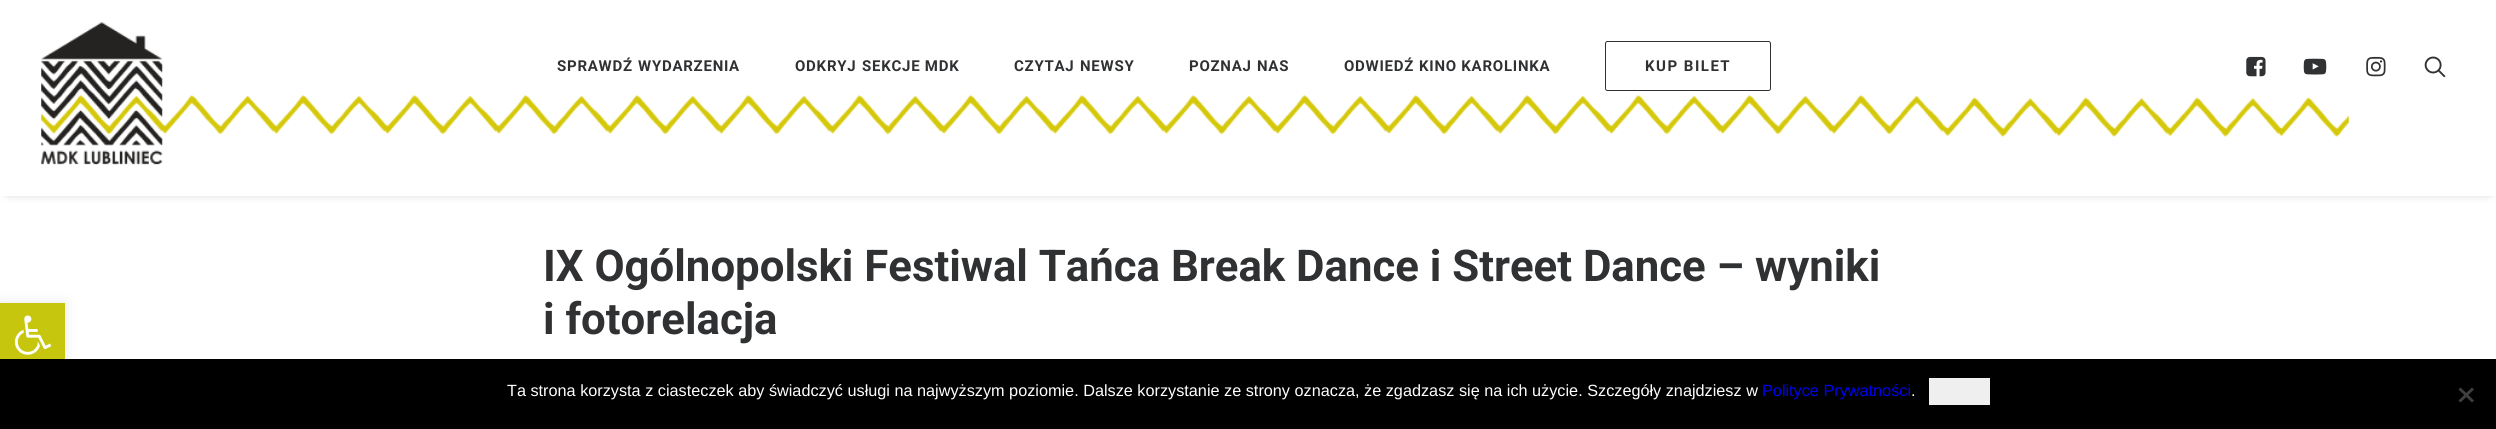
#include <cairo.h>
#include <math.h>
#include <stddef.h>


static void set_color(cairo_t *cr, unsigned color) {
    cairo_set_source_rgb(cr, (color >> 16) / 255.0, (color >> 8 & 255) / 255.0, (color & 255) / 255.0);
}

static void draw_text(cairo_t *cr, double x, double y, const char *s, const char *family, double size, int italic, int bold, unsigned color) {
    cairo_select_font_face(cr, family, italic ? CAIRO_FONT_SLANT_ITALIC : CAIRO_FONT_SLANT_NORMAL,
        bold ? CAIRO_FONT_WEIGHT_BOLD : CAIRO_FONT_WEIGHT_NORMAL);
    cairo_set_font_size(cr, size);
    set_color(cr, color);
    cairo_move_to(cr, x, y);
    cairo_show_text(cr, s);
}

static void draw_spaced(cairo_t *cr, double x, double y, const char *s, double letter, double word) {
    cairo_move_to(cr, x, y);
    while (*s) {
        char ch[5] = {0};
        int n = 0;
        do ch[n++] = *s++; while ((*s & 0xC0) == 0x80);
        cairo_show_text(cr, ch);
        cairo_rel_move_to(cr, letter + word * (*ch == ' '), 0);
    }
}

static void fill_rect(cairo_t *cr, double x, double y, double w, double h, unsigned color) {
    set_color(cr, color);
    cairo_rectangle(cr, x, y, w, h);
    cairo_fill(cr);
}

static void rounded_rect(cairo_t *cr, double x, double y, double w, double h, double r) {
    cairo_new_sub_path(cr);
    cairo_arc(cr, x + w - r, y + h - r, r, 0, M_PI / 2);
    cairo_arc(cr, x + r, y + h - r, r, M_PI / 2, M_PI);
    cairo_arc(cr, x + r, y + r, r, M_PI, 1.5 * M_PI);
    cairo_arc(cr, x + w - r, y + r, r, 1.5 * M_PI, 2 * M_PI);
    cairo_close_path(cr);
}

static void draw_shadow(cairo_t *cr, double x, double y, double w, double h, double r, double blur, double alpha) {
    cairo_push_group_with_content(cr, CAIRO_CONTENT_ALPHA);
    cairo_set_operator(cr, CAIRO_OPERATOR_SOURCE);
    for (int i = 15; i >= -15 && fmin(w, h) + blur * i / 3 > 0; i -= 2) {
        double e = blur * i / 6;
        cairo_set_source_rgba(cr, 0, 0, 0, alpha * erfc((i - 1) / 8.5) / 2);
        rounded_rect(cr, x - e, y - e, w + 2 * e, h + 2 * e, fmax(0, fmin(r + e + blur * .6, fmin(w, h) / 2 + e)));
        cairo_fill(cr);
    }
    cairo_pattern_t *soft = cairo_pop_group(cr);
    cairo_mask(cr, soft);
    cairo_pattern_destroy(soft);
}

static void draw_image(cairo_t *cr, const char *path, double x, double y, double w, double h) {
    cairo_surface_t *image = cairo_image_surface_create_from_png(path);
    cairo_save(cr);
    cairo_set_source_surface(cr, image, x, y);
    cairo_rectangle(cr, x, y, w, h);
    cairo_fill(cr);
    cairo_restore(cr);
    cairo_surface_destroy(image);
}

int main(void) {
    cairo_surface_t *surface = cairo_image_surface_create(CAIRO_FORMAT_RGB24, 2496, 429);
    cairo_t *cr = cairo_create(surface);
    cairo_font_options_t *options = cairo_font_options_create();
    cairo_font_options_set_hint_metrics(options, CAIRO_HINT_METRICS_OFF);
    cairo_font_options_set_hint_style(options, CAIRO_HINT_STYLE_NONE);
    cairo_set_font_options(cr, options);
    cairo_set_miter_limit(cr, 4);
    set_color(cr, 0xFFFFFF);
    cairo_paint(cr);
    set_color(cr, 0x000000);
    draw_shadow(cr, 0, 303, 65, 65, 0, 6, 0.1);
    fill_rect(cr, 0, 303, 65, 56, 0xC7C60E);
    draw_image(cr, "assets/img1.png", 14, 315, 38, 40);
    set_color(cr, 0x000000);
    draw_shadow(cr, 9, 18, 2480, 171, 0, 6, 0.6);
    fill_rect(cr, 0, 5, 2496, 191, 0xFFFFFF);
    draw_image(cr, "assets/img2.png", 41, 22, 2308, 143);
    cairo_select_font_face(cr, "Roboto", CAIRO_FONT_SLANT_NORMAL, CAIRO_FONT_WEIGHT_BOLD);
    cairo_set_font_size(cr, 15);
    set_color(cr, 0x303133);
    draw_spaced(cr, 557, 71, "SPRAWDŹ", 0.75, 0);
    draw_spaced(cr, 638, 71, "WYDARZENIA", 0.75, 0);
    draw_spaced(cr, 795, 71, "ODKRYJ", 0.75, 0);
    draw_spaced(cr, 862, 71, "SEKCJE MDK", 0.75, 0);
    draw_spaced(cr, 1014, 71, "CZYTAJ", 0.75, 0);
    draw_spaced(cr, 1080, 71, "NEWSY", 0.75, 0);
    draw_spaced(cr, 1189, 71, "POZNAJ", 0.75, 0);
    draw_spaced(cr, 1257, 71, "NAS", 0.75, 0);
    draw_spaced(cr, 1344, 71, "ODWIEDŹ", 0.75, 0);
    draw_spaced(cr, 1419, 71, "KINO KAROLINKA", 0.75, 0);
    rounded_rect(cr, 1605.5, 41.5, 165, 49, 2);
    cairo_set_line_width(cr, 1);
    cairo_stroke(cr);
    draw_spaced(cr, 1645, 71, "KUP BILET", 1.5, 0);
    draw_image(cr, "assets/img3.png", 2246, 56, 20, 21);
    draw_image(cr, "assets/img4.png", 2303, 58, 24, 17);
    draw_image(cr, "assets/img5.png", 2366, 56, 20, 21);
    draw_image(cr, "assets/img6.png", 2424, 56, 22, 22);
    draw_text(cr, 543, 281, "IX Ogólnopolski Festiwal Tańca Break Dance i Street Dance – wyniki", "Roboto", 43.75, 0, 1, 0x303133);
    draw_text(cr, 543, 334, "i fotorelacja", "Roboto", 43.75, 0, 1, 0x303133);
    fill_rect(cr, 0, 359, 2496, 70, 0x000000);
    draw_text(cr, 507, 396, "Ta strona korzysta z ciasteczek aby świadczyć usługi na najwyższym poziomie. Dalsze korzystanie ze strony oznacza, że zgadzasz się na ich użycie. Szczegóły znajdziesz w", "Liberation Sans", 16.25, 0, 0, 0xFFFFFF);
    draw_text(cr, 1762, 396, "Polityce Prywatności", "Liberation Sans", 16.25, 0, 0, 0x0000EE);
    draw_text(cr, 1911, 396, ".", "Liberation Sans", 16.25, 0, 0, 0xFFFFFF);
    fill_rect(cr, 1929, 378, 61, 27, 0xEFEFEF);
    set_color(cr, 0x404040);
    cairo_new_path(cr);
    cairo_move_to(cr, 2472, 387.5);
    cairo_line_to(cr, 2474, 389.5);
    cairo_line_to(cr, 2460.5, 402.5);
    cairo_line_to(cr, 2458.5, 400.5);
    cairo_close_path(cr);
    cairo_fill(cr);
    cairo_new_path(cr);
    cairo_move_to(cr, 2458.5, 389.5);
    cairo_line_to(cr, 2460.5, 387.5);
    cairo_line_to(cr, 2474, 400.5);
    cairo_line_to(cr, 2472, 402.5);
    cairo_close_path(cr);
    cairo_fill(cr);
    cairo_surface_write_to_png(surface, "output.png");
    cairo_font_options_destroy(options);
    cairo_destroy(cr);
    cairo_surface_destroy(surface);
    return 0;
}
